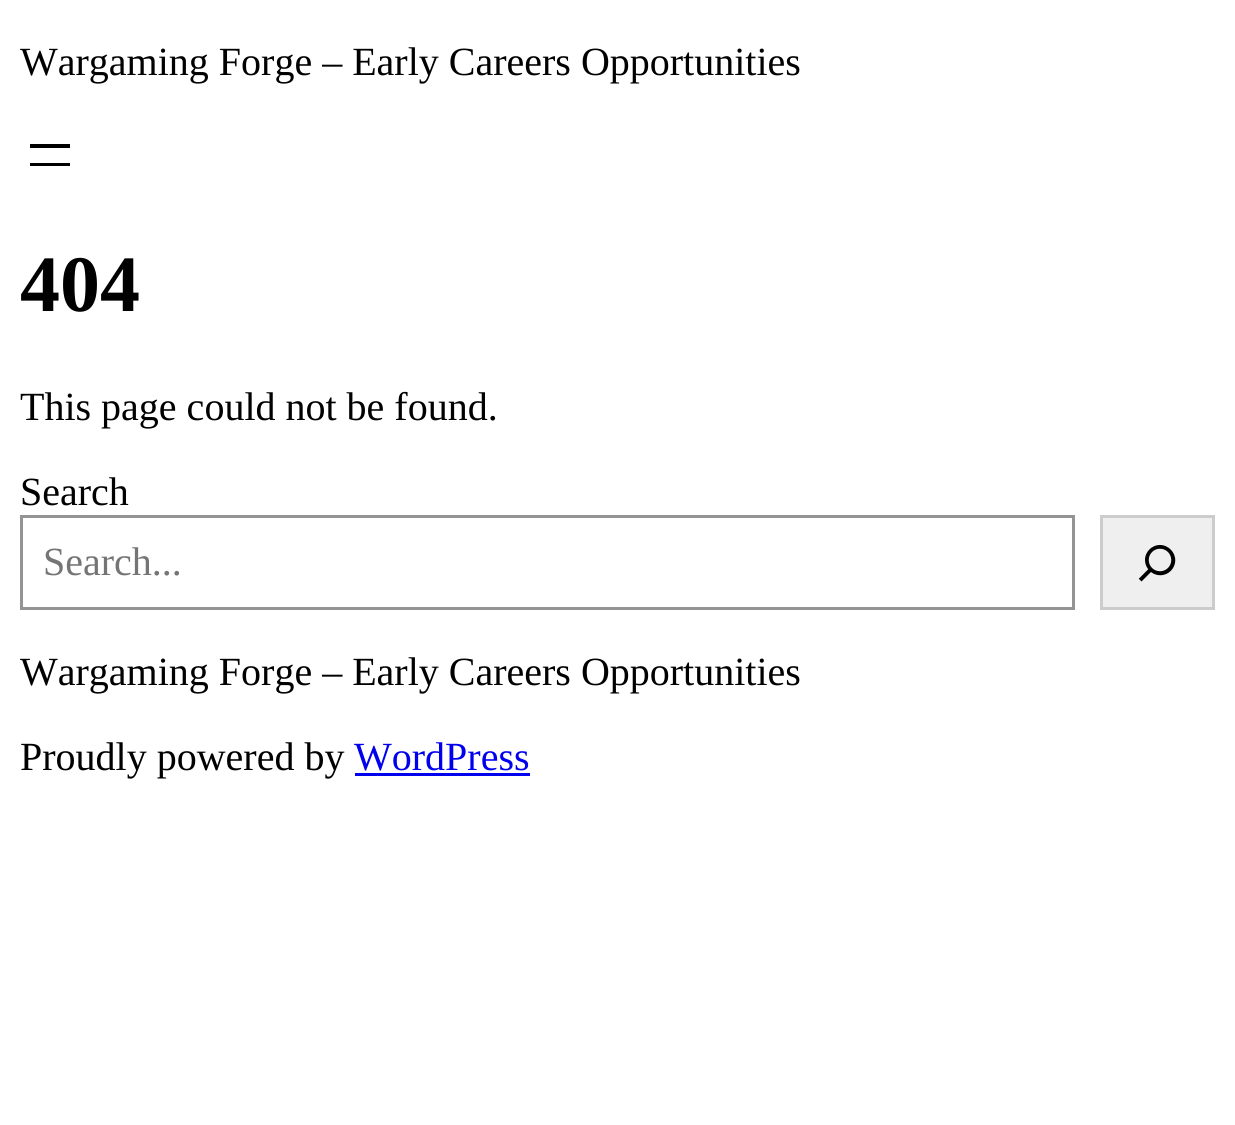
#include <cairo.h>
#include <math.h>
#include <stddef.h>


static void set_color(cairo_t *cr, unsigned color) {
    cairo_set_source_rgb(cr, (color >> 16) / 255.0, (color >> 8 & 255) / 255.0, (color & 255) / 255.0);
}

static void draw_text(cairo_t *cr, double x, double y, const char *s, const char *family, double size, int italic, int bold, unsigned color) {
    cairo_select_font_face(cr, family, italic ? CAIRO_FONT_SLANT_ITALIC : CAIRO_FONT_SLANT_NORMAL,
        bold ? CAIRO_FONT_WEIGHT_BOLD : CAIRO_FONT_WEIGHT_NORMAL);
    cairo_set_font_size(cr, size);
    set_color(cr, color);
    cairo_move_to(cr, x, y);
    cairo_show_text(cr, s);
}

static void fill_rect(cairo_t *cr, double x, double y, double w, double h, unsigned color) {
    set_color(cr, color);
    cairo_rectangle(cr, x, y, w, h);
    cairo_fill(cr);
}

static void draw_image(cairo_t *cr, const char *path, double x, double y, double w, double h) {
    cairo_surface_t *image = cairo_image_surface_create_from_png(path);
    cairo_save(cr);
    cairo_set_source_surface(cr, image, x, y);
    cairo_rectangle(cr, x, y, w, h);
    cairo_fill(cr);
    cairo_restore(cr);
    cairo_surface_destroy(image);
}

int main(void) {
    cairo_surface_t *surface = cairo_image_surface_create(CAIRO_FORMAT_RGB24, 1235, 1125);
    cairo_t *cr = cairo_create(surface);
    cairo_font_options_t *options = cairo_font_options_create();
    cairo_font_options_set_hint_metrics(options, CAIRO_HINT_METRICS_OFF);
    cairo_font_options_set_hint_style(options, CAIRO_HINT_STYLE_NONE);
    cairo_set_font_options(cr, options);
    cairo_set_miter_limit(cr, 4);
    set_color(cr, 0xFFFFFF);
    cairo_paint(cr);
    draw_text(cr, 20, 75, "Wargaming Forge – Early Careers Opportunities", "Liberation Serif", 40, 0, 0, 0x000000);
    fill_rect(cr, 30, 144, 40, 4, 0x000000);
    fill_rect(cr, 30, 163, 40, 3, 0x000000);
    draw_text(cr, 20, 311, "404", "Liberation Serif", 80, 0, 1, 0x000000);
    draw_text(cr, 20, 420, "This page could not be found.", "Liberation Serif", 40, 0, 0, 0x000000);
    draw_text(cr, 20, 505, "Search", "Liberation Serif", 40, 0, 0, 0x000000);
    cairo_rectangle(cr, 21.5, 516.5, 1052, 92);
    set_color(cr, 0x949494);
    cairo_set_line_width(cr, 3);
    cairo_stroke(cr);
    draw_text(cr, 43, 575, "Search...", "Liberation Serif", 40, 0, 0, 0x757575);
    set_color(cr, 0xEFEFEF);
    cairo_rectangle(cr, 1101.5, 516.5, 112, 92);
    cairo_fill_preserve(cr);
    set_color(cr, 0xCCCCCC);
    cairo_stroke(cr);
    draw_image(cr, "assets/img1.png", 1138, 545, 38, 37);
    draw_text(cr, 20, 685, "Wargaming Forge – Early Careers Opportunities", "Liberation Serif", 40, 0, 0, 0x000000);
    draw_text(cr, 20, 770, "Proudly powered by", "Liberation Serif", 40, 0, 0, 0x000000);
    draw_text(cr, 354, 770, "WordPress", "Liberation Serif", 40, 0, 0, 0x0000EE);
    fill_rect(cr, 355, 773, 175, 3, 0x0000EE);
    cairo_surface_write_to_png(surface, "output.png");
    cairo_font_options_destroy(options);
    cairo_destroy(cr);
    cairo_surface_destroy(surface);
    return 0;
}
